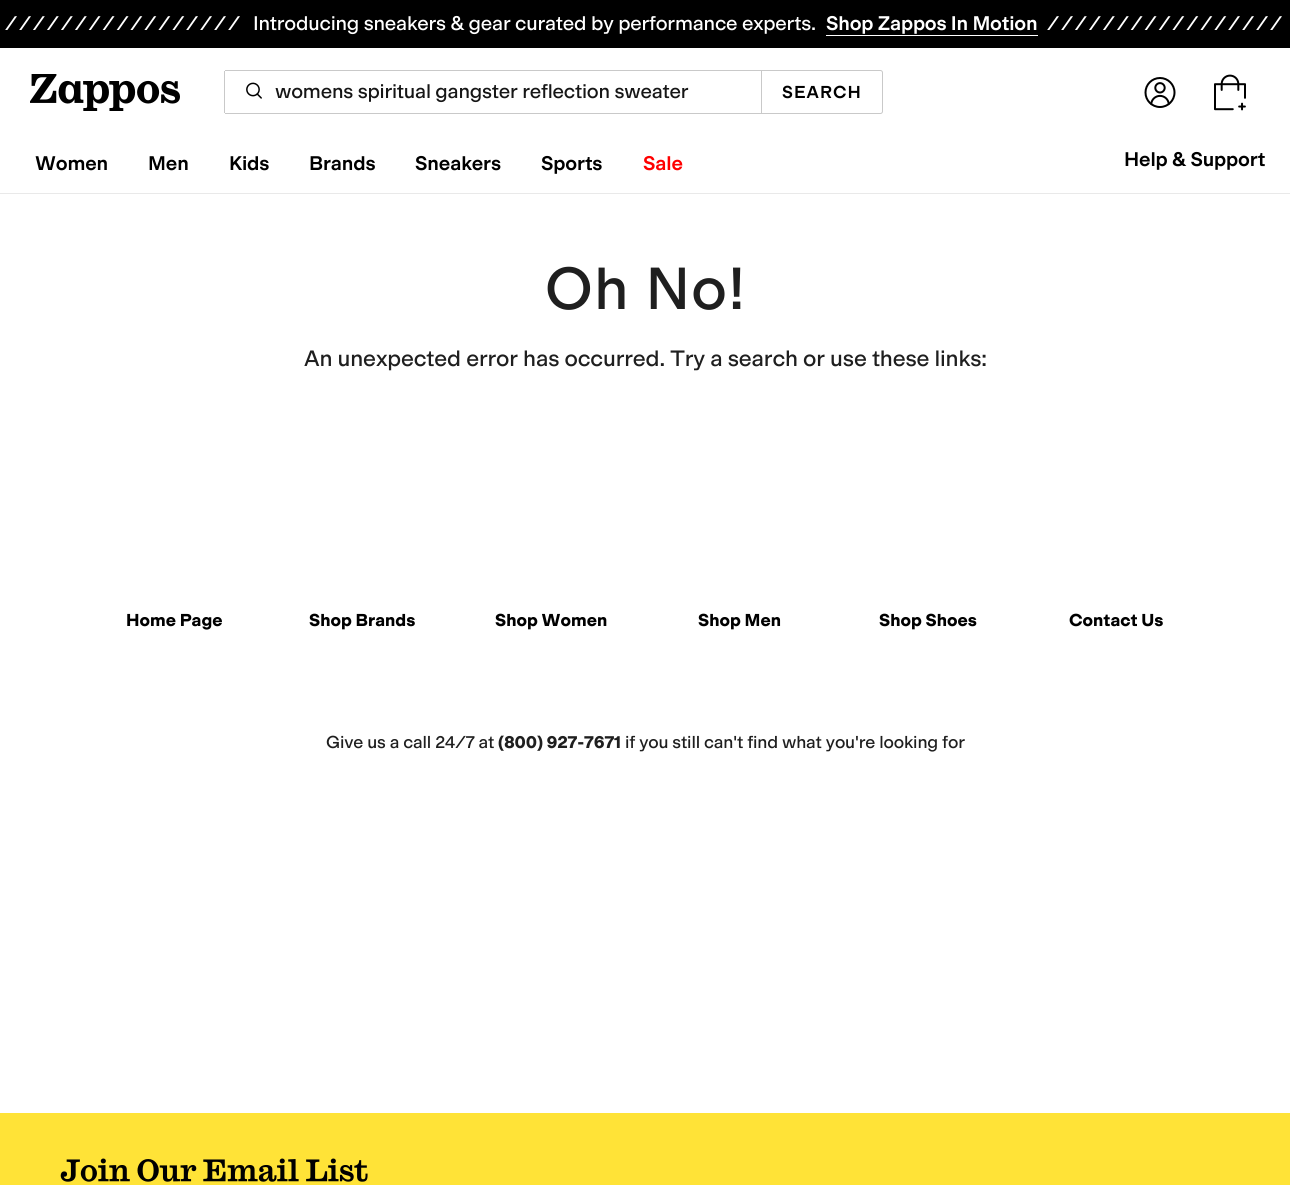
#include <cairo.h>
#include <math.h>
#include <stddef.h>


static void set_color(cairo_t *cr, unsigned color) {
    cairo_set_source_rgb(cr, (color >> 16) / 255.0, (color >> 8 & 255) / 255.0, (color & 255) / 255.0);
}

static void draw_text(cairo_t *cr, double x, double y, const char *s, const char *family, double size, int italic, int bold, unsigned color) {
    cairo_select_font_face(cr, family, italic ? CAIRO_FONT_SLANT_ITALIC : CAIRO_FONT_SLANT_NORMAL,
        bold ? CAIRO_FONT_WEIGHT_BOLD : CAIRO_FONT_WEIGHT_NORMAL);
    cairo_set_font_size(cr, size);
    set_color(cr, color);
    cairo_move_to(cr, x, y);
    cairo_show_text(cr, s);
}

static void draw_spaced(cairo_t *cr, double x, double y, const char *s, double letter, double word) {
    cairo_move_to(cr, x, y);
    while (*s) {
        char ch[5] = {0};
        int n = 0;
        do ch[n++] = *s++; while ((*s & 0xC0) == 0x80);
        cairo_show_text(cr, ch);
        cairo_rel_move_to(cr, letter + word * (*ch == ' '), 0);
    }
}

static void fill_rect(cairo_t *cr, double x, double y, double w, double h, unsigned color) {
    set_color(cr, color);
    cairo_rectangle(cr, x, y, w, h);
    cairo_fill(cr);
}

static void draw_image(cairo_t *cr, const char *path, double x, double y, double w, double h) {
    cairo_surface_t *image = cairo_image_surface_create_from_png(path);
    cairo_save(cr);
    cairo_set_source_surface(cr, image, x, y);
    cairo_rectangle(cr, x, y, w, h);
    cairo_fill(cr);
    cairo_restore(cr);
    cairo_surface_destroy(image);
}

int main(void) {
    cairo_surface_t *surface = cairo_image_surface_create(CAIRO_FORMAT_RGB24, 1290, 1185);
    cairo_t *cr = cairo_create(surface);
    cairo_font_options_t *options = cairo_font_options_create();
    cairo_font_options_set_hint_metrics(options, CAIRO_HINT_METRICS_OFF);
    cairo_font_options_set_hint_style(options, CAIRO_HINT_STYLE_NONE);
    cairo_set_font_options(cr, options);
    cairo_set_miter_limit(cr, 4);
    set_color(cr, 0xFFFFFF);
    cairo_paint(cr);
    fill_rect(cr, 0, 0, 1290, 48, 0x000000);
    cairo_select_font_face(cr, "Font", CAIRO_FONT_SLANT_NORMAL, CAIRO_FONT_WEIGHT_NORMAL);
    cairo_set_font_size(cr, 20);
    set_color(cr, 0xFFFFFF);
    draw_spaced(cr, 5, 30, "/////////////////", 1.75, 0);
    draw_spaced(cr, 253, 30, "Introducing sneakers & gear curated by performance experts.", -0.2, 0);
    cairo_select_font_face(cr, "Font Medium", CAIRO_FONT_SLANT_NORMAL, CAIRO_FONT_WEIGHT_NORMAL);
    draw_spaced(cr, 826, 30, "Shop Zappos In Motion", -0.2, 0);
    fill_rect(cr, 826, 35, 212, 1, 0xFFFFFF);
    cairo_select_font_face(cr, "Font", CAIRO_FONT_SLANT_NORMAL, CAIRO_FONT_WEIGHT_NORMAL);
    draw_spaced(cr, 1047, 30, "/////////////////", 1.75, 0);
    fill_rect(cr, 0, 193, 1290, 1, 0xE9E9E9);
    draw_image(cr, "assets/img1.png", 30, 74, 150, 37);
    draw_image(cr, "assets/img2.png", 246, 82, 16, 17);
    fill_rect(cr, 225, 70, 536, 1, 0xC9C9C9);
    fill_rect(cr, 225, 113, 536, 1, 0xC9C9C9);
    fill_rect(cr, 224, 71, 1, 42, 0xC9C9C9);
    set_color(cr, 0x161616);
    draw_spaced(cr, 275, 98, "womens spiritual gangster reflection sweater", -0.2, 0);
    cairo_new_path(cr);
    cairo_move_to(cr, 761.5, 70.5);
    cairo_line_to(cr, 880.5, 70.5);
    cairo_curve_to(cr, 881.5, 70.5, 882.5, 71.5, 882.5, 72.5);
    cairo_line_to(cr, 882.5, 111.5);
    cairo_curve_to(cr, 882.5, 112.5, 881.5, 113.5, 880.5, 113.5);
    cairo_line_to(cr, 761.5, 113.5);
    cairo_close_path(cr);
    set_color(cr, 0xC9C9C9);
    cairo_set_line_width(cr, 1);
    cairo_stroke(cr);
    cairo_select_font_face(cr, "Font Medium", CAIRO_FONT_SLANT_NORMAL, CAIRO_FONT_WEIGHT_NORMAL);
    cairo_set_font_size(cr, 17.5);
    set_color(cr, 0x000000);
    draw_spaced(cr, 782, 98, "SEARCH", 1, 0);
    draw_image(cr, "assets/img3.png", 1144, 77, 32, 31);
    draw_image(cr, "assets/img4.png", 1214, 74, 32, 37);
    cairo_set_font_size(cr, 20);
    draw_spaced(cr, 35, 170, "Women", -0.15, 0);
    draw_spaced(cr, 148, 170, "Men", -0.15, 0);
    draw_spaced(cr, 229, 170, "Kids", -0.15, 0);
    draw_spaced(cr, 309, 170, "Brands", -0.15, 0);
    draw_spaced(cr, 415, 170, "Sneakers", -0.15, 0);
    draw_spaced(cr, 541, 170, "Sports", -0.15, 0);
    set_color(cr, 0xFF0000);
    draw_spaced(cr, 643, 170, "Sale", -0.15, 0);
    set_color(cr, 0x000000);
    draw_spaced(cr, 1124, 166, "Help & Support", -0.15, 0);
    cairo_select_font_face(cr, "Font", CAIRO_FONT_SLANT_NORMAL, CAIRO_FONT_WEIGHT_NORMAL);
    cairo_set_font_size(cr, 60);
    set_color(cr, 0x1F1F1F);
    draw_spaced(cr, 545, 309, "Oh No!", 1.25, 0);
    cairo_set_font_size(cr, 22.5);
    draw_spaced(cr, 304, 366, "An unexpected error has occurred. Try a search or use these links:", -0.15, 0);
    draw_text(cr, 126, 626, "Home Page", "Font", 17.5, 0, 1, 0x000000);
    draw_text(cr, 309, 626, "Shop Brands", "Font", 17.5, 0, 1, 0x000000);
    draw_text(cr, 495, 626, "Shop Women", "Font", 17.5, 0, 1, 0x000000);
    draw_text(cr, 698, 626, "Shop Men", "Font", 17.5, 0, 1, 0x000000);
    draw_text(cr, 879, 626, "Shop Shoes", "Font", 17.5, 0, 1, 0x000000);
    draw_text(cr, 1069, 626, "Contact Us", "Font", 17.5, 0, 1, 0x000000);
    cairo_select_font_face(cr, "Font", CAIRO_FONT_SLANT_NORMAL, CAIRO_FONT_WEIGHT_NORMAL);
    set_color(cr, 0x1F1F1F);
    draw_spaced(cr, 326, 748, "Give us a call 24/7 at", -0.15, 0);
    cairo_select_font_face(cr, "Font", CAIRO_FONT_SLANT_NORMAL, CAIRO_FONT_WEIGHT_BOLD);
    draw_spaced(cr, 498, 748, "(800) 927-7671", -0.15, 0);
    cairo_select_font_face(cr, "Font", CAIRO_FONT_SLANT_NORMAL, CAIRO_FONT_WEIGHT_NORMAL);
    draw_spaced(cr, 625, 748, "if you still can't find what you're looking for", -0.15, 0);
    fill_rect(cr, 0, 1113, 1290, 72, 0xFFE337);
    draw_image(cr, "assets/img5.png", 60, 1158, 308, 24);
    cairo_surface_write_to_png(surface, "output.png");
    cairo_font_options_destroy(options);
    cairo_destroy(cr);
    cairo_surface_destroy(surface);
    return 0;
}
